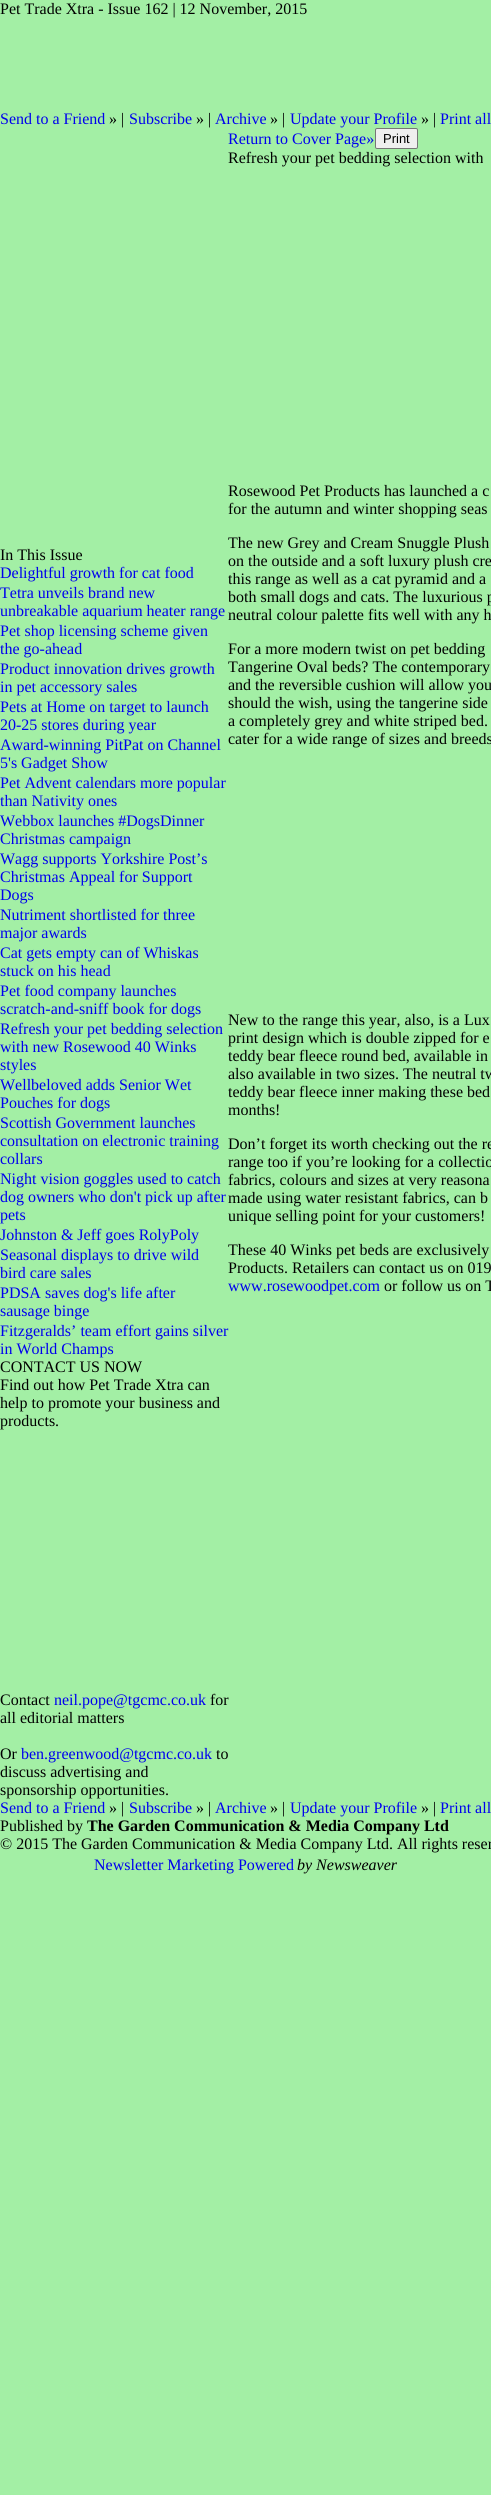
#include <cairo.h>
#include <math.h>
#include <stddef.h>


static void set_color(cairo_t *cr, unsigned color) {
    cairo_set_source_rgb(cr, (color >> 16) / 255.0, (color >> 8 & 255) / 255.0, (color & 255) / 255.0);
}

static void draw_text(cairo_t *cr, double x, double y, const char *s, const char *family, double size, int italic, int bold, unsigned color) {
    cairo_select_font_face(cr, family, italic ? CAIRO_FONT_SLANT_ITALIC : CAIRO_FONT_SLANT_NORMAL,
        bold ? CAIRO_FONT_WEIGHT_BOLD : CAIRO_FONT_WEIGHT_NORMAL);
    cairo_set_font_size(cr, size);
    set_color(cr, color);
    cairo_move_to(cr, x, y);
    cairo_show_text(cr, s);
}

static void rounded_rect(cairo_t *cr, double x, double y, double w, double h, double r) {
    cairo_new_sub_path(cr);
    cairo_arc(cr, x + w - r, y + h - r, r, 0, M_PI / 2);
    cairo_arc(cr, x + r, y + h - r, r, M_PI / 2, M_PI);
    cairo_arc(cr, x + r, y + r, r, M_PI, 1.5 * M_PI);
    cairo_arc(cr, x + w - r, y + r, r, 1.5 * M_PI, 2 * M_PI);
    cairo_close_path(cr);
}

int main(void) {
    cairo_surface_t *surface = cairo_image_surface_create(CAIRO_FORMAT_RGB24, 491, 2495);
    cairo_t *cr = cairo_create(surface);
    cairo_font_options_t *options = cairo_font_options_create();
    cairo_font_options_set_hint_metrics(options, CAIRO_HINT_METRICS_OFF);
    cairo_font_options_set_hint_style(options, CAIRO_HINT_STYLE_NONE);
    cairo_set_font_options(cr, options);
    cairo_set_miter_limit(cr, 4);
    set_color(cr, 0xA3EFA5);
    cairo_paint(cr);
    draw_text(cr, 0, 14, "Pet Trade Xtra - Issue 162 | 12 November, 2015", "Liberation Serif", 16, 0, 0, 0x000000);
    draw_text(cr, 0, 124, "Send to a Friend", "Liberation Serif", 16, 0, 0, 0x0000EE);
    draw_text(cr, 109, 124, "» |", "Liberation Serif", 16, 0, 0, 0x000000);
    draw_text(cr, 129, 124, "Subscribe", "Liberation Serif", 16, 0, 0, 0x0000EE);
    draw_text(cr, 196, 124, "» |", "Liberation Serif", 16, 0, 0, 0x000000);
    draw_text(cr, 215, 124, "Archive", "Liberation Serif", 16, 0, 0, 0x0000EE);
    draw_text(cr, 270, 124, "» |", "Liberation Serif", 16, 0, 0, 0x000000);
    draw_text(cr, 290, 124, "Update your Profile", "Liberation Serif", 16, 0, 0, 0x0000EE);
    draw_text(cr, 421, 124, "» |", "Liberation Serif", 16, 0, 0, 0x000000);
    draw_text(cr, 440, 124, "Print all", "Liberation Serif", 16, 0, 0, 0x0000EE);
    draw_text(cr, 0, 560, "In This Issue", "Liberation Serif", 16, 0, 0, 0x000000);
    draw_text(cr, 0, 578, "Delightful growth for cat food", "Liberation Serif", 16, 0, 0, 0x0000EE);
    draw_text(cr, 0, 598, "Tetra unveils brand new", "Liberation Serif", 16, 0, 0, 0x0000EE);
    draw_text(cr, 0, 616, "unbreakable aquarium heater range", "Liberation Serif", 16, 0, 0, 0x0000EE);
    draw_text(cr, 0, 636, "Pet shop licensing scheme given", "Liberation Serif", 16, 0, 0, 0x0000EE);
    draw_text(cr, 0, 654, "the go-ahead", "Liberation Serif", 16, 0, 0, 0x0000EE);
    draw_text(cr, 0, 674, "Product innovation drives growth", "Liberation Serif", 16, 0, 0, 0x0000EE);
    draw_text(cr, 0, 692, "in pet accessory sales", "Liberation Serif", 16, 0, 0, 0x0000EE);
    draw_text(cr, 0, 712, "Pets at Home on target to launch", "Liberation Serif", 16, 0, 0, 0x0000EE);
    draw_text(cr, 0, 730, "20-25 stores during year", "Liberation Serif", 16, 0, 0, 0x0000EE);
    draw_text(cr, 0, 750, "Award-winning PitPat on Channel", "Liberation Serif", 16, 0, 0, 0x0000EE);
    draw_text(cr, 0, 768, "5's Gadget Show", "Liberation Serif", 16, 0, 0, 0x0000EE);
    draw_text(cr, 0, 788, "Pet Advent calendars more popular", "Liberation Serif", 16, 0, 0, 0x0000EE);
    draw_text(cr, 0, 806, "than Nativity ones", "Liberation Serif", 16, 0, 0, 0x0000EE);
    draw_text(cr, 0, 826, "Webbox launches #DogsDinner", "Liberation Serif", 16, 0, 0, 0x0000EE);
    draw_text(cr, 0, 844, "Christmas campaign", "Liberation Serif", 16, 0, 0, 0x0000EE);
    draw_text(cr, 0, 864, "Wagg supports Yorkshire Post’s", "Liberation Serif", 16, 0, 0, 0x0000EE);
    draw_text(cr, 0, 882, "Christmas Appeal for Support", "Liberation Serif", 16, 0, 0, 0x0000EE);
    draw_text(cr, 0, 900, "Dogs", "Liberation Serif", 16, 0, 0, 0x0000EE);
    draw_text(cr, 0, 920, "Nutriment shortlisted for three", "Liberation Serif", 16, 0, 0, 0x0000EE);
    draw_text(cr, 0, 938, "major awards", "Liberation Serif", 16, 0, 0, 0x0000EE);
    draw_text(cr, 0, 958, "Cat gets empty can of Whiskas", "Liberation Serif", 16, 0, 0, 0x0000EE);
    draw_text(cr, 0, 976, "stuck on his head", "Liberation Serif", 16, 0, 0, 0x0000EE);
    draw_text(cr, 0, 996, "Pet food company launches", "Liberation Serif", 16, 0, 0, 0x0000EE);
    draw_text(cr, 0, 1014, "scratch-and-sniff book for dogs", "Liberation Serif", 16, 0, 0, 0x0000EE);
    draw_text(cr, 0, 1034, "Refresh your pet bedding selection", "Liberation Serif", 16, 0, 0, 0x0000EE);
    draw_text(cr, 0, 1052, "with new Rosewood 40 Winks", "Liberation Serif", 16, 0, 0, 0x0000EE);
    draw_text(cr, 0, 1070, "styles", "Liberation Serif", 16, 0, 0, 0x0000EE);
    draw_text(cr, 0, 1090, "Wellbeloved adds Senior Wet", "Liberation Serif", 16, 0, 0, 0x0000EE);
    draw_text(cr, 0, 1108, "Pouches for dogs", "Liberation Serif", 16, 0, 0, 0x0000EE);
    draw_text(cr, 0, 1128, "Scottish Government launches", "Liberation Serif", 16, 0, 0, 0x0000EE);
    draw_text(cr, 0, 1146, "consultation on electronic training", "Liberation Serif", 16, 0, 0, 0x0000EE);
    draw_text(cr, 0, 1164, "collars", "Liberation Serif", 16, 0, 0, 0x0000EE);
    draw_text(cr, 0, 1184, "Night vision goggles used to catch", "Liberation Serif", 16, 0, 0, 0x0000EE);
    draw_text(cr, 0, 1202, "dog owners who don't pick up after", "Liberation Serif", 16, 0, 0, 0x0000EE);
    draw_text(cr, 0, 1220, "pets", "Liberation Serif", 16, 0, 0, 0x0000EE);
    draw_text(cr, 0, 1240, "Johnston & Jeff goes RolyPoly", "Liberation Serif", 16, 0, 0, 0x0000EE);
    draw_text(cr, 0, 1260, "Seasonal displays to drive wild", "Liberation Serif", 16, 0, 0, 0x0000EE);
    draw_text(cr, 0, 1278, "bird care sales", "Liberation Serif", 16, 0, 0, 0x0000EE);
    draw_text(cr, 0, 1298, "PDSA saves dog's life after", "Liberation Serif", 16, 0, 0, 0x0000EE);
    draw_text(cr, 0, 1316, "sausage binge", "Liberation Serif", 16, 0, 0, 0x0000EE);
    draw_text(cr, 0, 1336, "Fitzgeralds’ team effort gains silver", "Liberation Serif", 16, 0, 0, 0x0000EE);
    draw_text(cr, 0, 1354, "in World Champs", "Liberation Serif", 16, 0, 0, 0x0000EE);
    draw_text(cr, 0, 1372, "CONTACT US NOW", "Liberation Serif", 16, 0, 0, 0x000000);
    draw_text(cr, 0, 1390, "Find out how Pet Trade Xtra can", "Liberation Serif", 16, 0, 0, 0x000000);
    draw_text(cr, 0, 1408, "help to promote your business and", "Liberation Serif", 16, 0, 0, 0x000000);
    draw_text(cr, 0, 1426, "products.", "Liberation Serif", 16, 0, 0, 0x000000);
    draw_text(cr, 0, 1705, "Contact", "Liberation Serif", 16, 0, 0, 0x000000);
    draw_text(cr, 54, 1705, "neil.pope@tgcmc.co.uk", "Liberation Serif", 16, 0, 0, 0x0000EE);
    draw_text(cr, 210, 1705, "for", "Liberation Serif", 16, 0, 0, 0x000000);
    draw_text(cr, 0, 1723, "all editorial matters", "Liberation Serif", 16, 0, 0, 0x000000);
    draw_text(cr, 0, 1759, "Or", "Liberation Serif", 16, 0, 0, 0x000000);
    draw_text(cr, 21, 1759, "ben.greenwood@tgcmc.co.uk", "Liberation Serif", 16, 0, 0, 0x0000EE);
    draw_text(cr, 216, 1759, "to", "Liberation Serif", 16, 0, 0, 0x000000);
    draw_text(cr, 0, 1777, "discuss advertising and", "Liberation Serif", 16, 0, 0, 0x000000);
    draw_text(cr, 0, 1795, "sponsorship opportunities.", "Liberation Serif", 16, 0, 0, 0x000000);
    draw_text(cr, 228, 144, "Return to Cover Page»", "Liberation Serif", 16, 0, 0, 0x0000EE);
    set_color(cr, 0xEFEFEF);
    rounded_rect(cr, 375.5, 128.5, 42, 20, 1.5);
    cairo_fill_preserve(cr);
    set_color(cr, 0x767676);
    cairo_set_line_width(cr, 1);
    cairo_stroke(cr);
    draw_text(cr, 383, 143, "Print", "Liberation Sans", 13, 0, 0, 0x000000);
    draw_text(cr, 228, 163, "Refresh your pet bedding selection with", "Liberation Serif", 16, 0, 0, 0x000000);
    draw_text(cr, 228, 496, "Rosewood Pet Products has launched a c", "Liberation Serif", 16, 0, 0, 0x000000);
    draw_text(cr, 228, 514, "for the autumn and winter shopping seas", "Liberation Serif", 16, 0, 0, 0x000000);
    draw_text(cr, 228, 548, "The new Grey and Cream Snuggle Plush", "Liberation Serif", 16, 0, 0, 0x000000);
    draw_text(cr, 228, 566, "on the outside and a soft luxury plush cre", "Liberation Serif", 16, 0, 0, 0x000000);
    draw_text(cr, 228, 584, "this range as well as a cat pyramid and a", "Liberation Serif", 16, 0, 0, 0x000000);
    draw_text(cr, 228, 602, "both small dogs and cats. The luxurious p", "Liberation Serif", 16, 0, 0, 0x000000);
    draw_text(cr, 228, 620, "neutral colour palette fits well with any h", "Liberation Serif", 16, 0, 0, 0x000000);
    draw_text(cr, 228, 654, "For a more modern twist on pet bedding", "Liberation Serif", 16, 0, 0, 0x000000);
    draw_text(cr, 228, 672, "Tangerine Oval beds? The contemporary", "Liberation Serif", 16, 0, 0, 0x000000);
    draw_text(cr, 228, 690, "and the reversible cushion will allow you", "Liberation Serif", 16, 0, 0, 0x000000);
    draw_text(cr, 228, 708, "should the wish, using the tangerine side", "Liberation Serif", 16, 0, 0, 0x000000);
    draw_text(cr, 228, 726, "a completely grey and white striped bed.", "Liberation Serif", 16, 0, 0, 0x000000);
    draw_text(cr, 228, 744, "cater for a wide range of sizes and breeds", "Liberation Serif", 16, 0, 0, 0x000000);
    draw_text(cr, 228, 1025, "New to the range this year, also, is a Lux", "Liberation Serif", 16, 0, 0, 0x000000);
    draw_text(cr, 228, 1043, "print design which is double zipped for e", "Liberation Serif", 16, 0, 0, 0x000000);
    draw_text(cr, 228, 1061, "teddy bear fleece round bed, available in", "Liberation Serif", 16, 0, 0, 0x000000);
    draw_text(cr, 228, 1079, "also available in two sizes. The neutral tw", "Liberation Serif", 16, 0, 0, 0x000000);
    draw_text(cr, 228, 1097, "teddy bear fleece inner making these bed", "Liberation Serif", 16, 0, 0, 0x000000);
    draw_text(cr, 228, 1115, "months!", "Liberation Serif", 16, 0, 0, 0x000000);
    draw_text(cr, 228, 1149, "Don’t forget its worth checking out the re", "Liberation Serif", 16, 0, 0, 0x000000);
    draw_text(cr, 228, 1167, "range too if you’re looking for a collectio", "Liberation Serif", 16, 0, 0, 0x000000);
    draw_text(cr, 228, 1185, "fabrics, colours and sizes at very reasona", "Liberation Serif", 16, 0, 0, 0x000000);
    draw_text(cr, 228, 1203, "made using water resistant fabrics, can b", "Liberation Serif", 16, 0, 0, 0x000000);
    draw_text(cr, 228, 1221, "unique selling point for your customers!", "Liberation Serif", 16, 0, 0, 0x000000);
    draw_text(cr, 228, 1255, "These 40 Winks pet beds are exclusively", "Liberation Serif", 16, 0, 0, 0x000000);
    draw_text(cr, 228, 1273, "Products. Retailers can contact us on 019", "Liberation Serif", 16, 0, 0, 0x000000);
    draw_text(cr, 228, 1291, "www.rosewoodpet.com", "Liberation Serif", 16, 0, 0, 0x0000EE);
    draw_text(cr, 384, 1291, "or follow us on T", "Liberation Serif", 16, 0, 0, 0x000000);
    draw_text(cr, 0, 1813, "Send to a Friend", "Liberation Serif", 16, 0, 0, 0x0000EE);
    draw_text(cr, 109, 1813, "» |", "Liberation Serif", 16, 0, 0, 0x000000);
    draw_text(cr, 129, 1813, "Subscribe", "Liberation Serif", 16, 0, 0, 0x0000EE);
    draw_text(cr, 196, 1813, "» |", "Liberation Serif", 16, 0, 0, 0x000000);
    draw_text(cr, 215, 1813, "Archive", "Liberation Serif", 16, 0, 0, 0x0000EE);
    draw_text(cr, 270, 1813, "» |", "Liberation Serif", 16, 0, 0, 0x000000);
    draw_text(cr, 290, 1813, "Update your Profile", "Liberation Serif", 16, 0, 0, 0x0000EE);
    draw_text(cr, 421, 1813, "» |", "Liberation Serif", 16, 0, 0, 0x000000);
    draw_text(cr, 440, 1813, "Print all", "Liberation Serif", 16, 0, 0, 0x0000EE);
    draw_text(cr, 0, 1831, "Published by", "Liberation Serif", 16, 0, 0, 0x000000);
    draw_text(cr, 87, 1831, "The Garden Communication & Media Company Ltd", "Liberation Serif", 16, 0, 1, 0x000000);
    draw_text(cr, 0, 1849, "© 2015 The Garden Communication & Media Company Ltd. All rights reser", "Liberation Serif", 16, 0, 0, 0x000000);
    draw_text(cr, 94, 1870, "Newsletter Marketing Powered", "Liberation Serif", 16, 0, 0, 0x0000EE);
    draw_text(cr, 297, 1870, "by Newsweaver", "Liberation Serif", 16, 1, 0, 0x000000);
    cairo_surface_write_to_png(surface, "output.png");
    cairo_font_options_destroy(options);
    cairo_destroy(cr);
    cairo_surface_destroy(surface);
    return 0;
}
